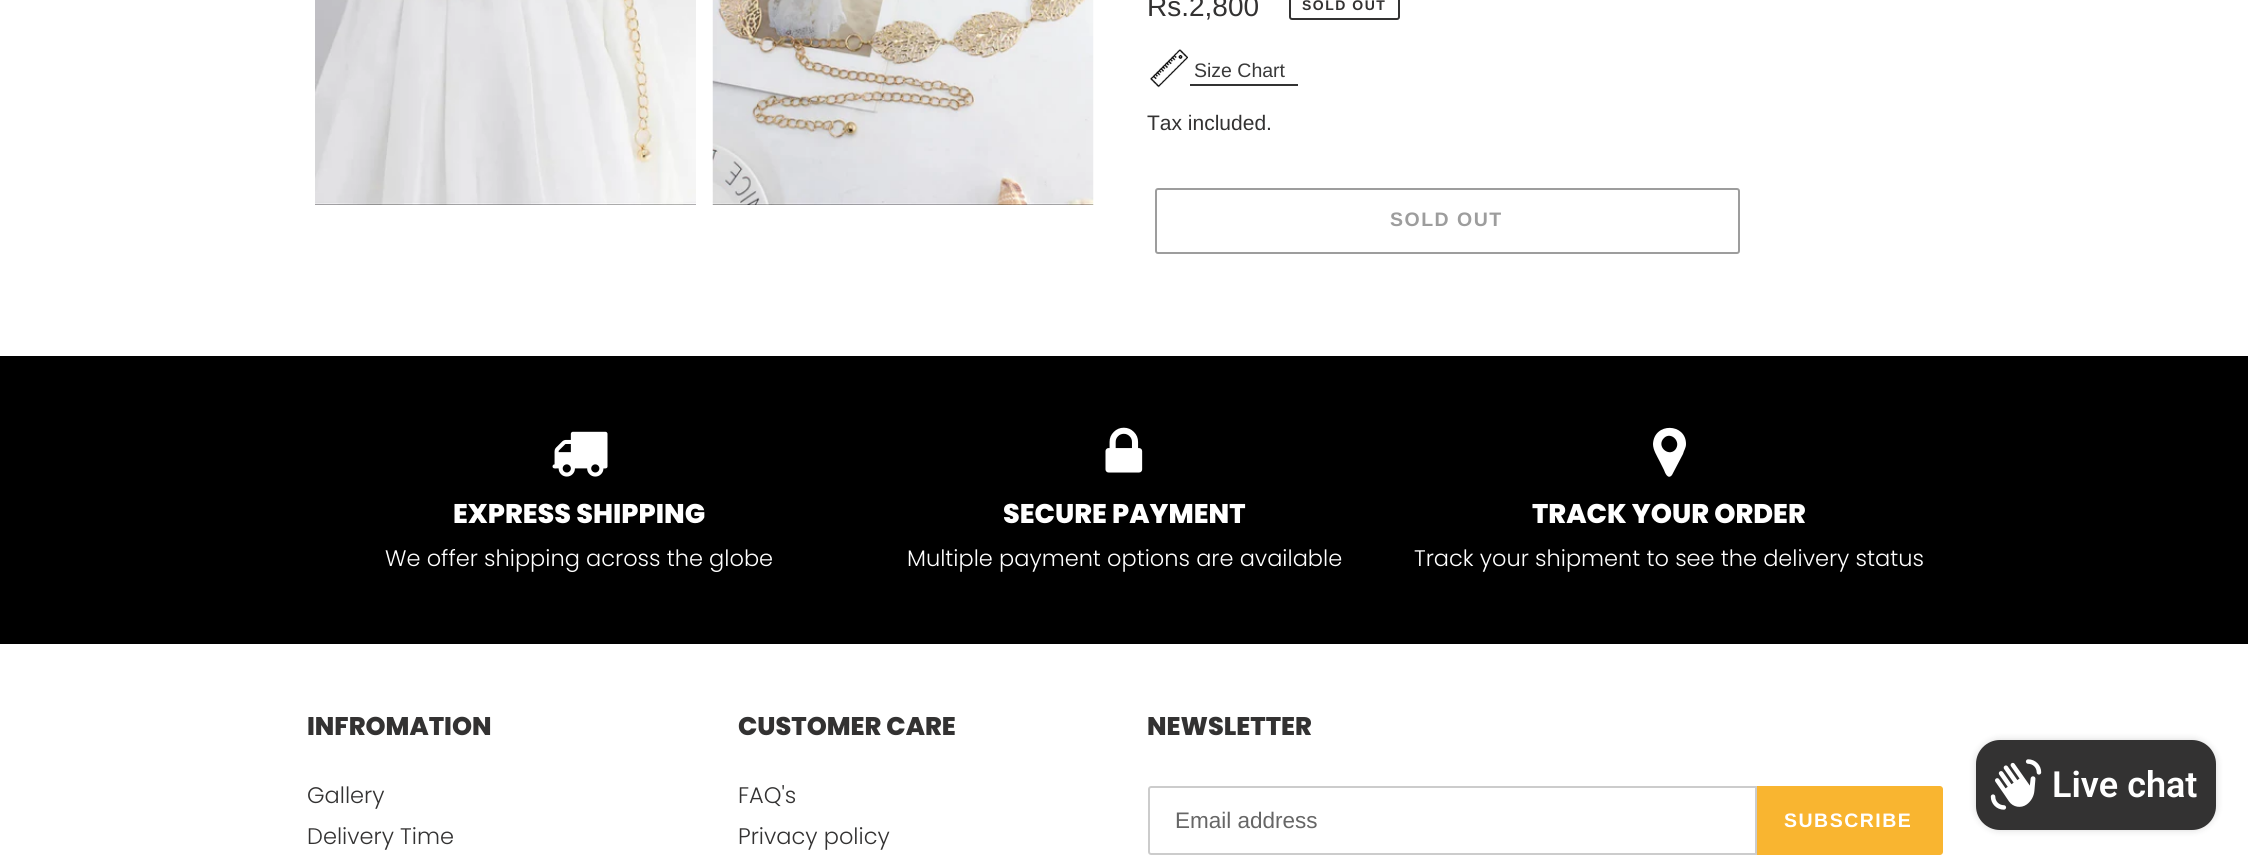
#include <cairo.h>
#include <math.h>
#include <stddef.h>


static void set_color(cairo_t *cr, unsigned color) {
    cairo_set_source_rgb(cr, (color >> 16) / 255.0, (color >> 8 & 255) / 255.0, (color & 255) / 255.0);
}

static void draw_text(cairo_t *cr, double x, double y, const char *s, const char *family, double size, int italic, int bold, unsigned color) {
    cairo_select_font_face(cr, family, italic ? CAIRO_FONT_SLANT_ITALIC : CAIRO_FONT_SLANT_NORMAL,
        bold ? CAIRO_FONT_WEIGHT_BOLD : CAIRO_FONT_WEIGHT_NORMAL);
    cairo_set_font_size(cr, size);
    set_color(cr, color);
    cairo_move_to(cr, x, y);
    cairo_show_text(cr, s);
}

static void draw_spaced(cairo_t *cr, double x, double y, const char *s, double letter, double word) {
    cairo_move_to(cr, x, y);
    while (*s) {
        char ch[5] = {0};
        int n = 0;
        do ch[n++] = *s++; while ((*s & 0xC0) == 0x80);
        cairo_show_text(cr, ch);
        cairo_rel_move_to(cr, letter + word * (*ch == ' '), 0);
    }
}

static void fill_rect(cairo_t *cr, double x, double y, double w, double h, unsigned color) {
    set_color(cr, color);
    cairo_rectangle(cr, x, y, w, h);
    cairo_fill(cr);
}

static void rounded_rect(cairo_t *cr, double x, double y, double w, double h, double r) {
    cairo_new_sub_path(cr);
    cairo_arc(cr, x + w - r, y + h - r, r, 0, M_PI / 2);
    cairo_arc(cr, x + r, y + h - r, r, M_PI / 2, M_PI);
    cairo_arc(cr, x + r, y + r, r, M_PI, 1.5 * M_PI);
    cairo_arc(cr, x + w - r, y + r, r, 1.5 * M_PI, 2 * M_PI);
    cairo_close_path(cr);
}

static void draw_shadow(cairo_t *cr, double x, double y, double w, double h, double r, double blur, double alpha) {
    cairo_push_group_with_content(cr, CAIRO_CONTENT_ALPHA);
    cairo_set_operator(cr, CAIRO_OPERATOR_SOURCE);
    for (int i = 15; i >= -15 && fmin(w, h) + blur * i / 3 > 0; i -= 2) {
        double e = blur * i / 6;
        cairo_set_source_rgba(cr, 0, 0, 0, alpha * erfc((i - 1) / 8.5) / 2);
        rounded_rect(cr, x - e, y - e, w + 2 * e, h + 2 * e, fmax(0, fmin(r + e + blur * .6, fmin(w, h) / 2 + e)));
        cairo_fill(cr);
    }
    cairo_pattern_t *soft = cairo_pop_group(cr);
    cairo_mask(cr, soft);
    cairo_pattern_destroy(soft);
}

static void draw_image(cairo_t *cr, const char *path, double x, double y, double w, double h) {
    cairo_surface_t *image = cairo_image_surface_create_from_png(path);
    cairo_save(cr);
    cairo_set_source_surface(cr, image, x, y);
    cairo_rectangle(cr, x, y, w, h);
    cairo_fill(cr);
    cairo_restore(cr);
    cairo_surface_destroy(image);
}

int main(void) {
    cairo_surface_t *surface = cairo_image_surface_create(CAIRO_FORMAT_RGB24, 2248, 860);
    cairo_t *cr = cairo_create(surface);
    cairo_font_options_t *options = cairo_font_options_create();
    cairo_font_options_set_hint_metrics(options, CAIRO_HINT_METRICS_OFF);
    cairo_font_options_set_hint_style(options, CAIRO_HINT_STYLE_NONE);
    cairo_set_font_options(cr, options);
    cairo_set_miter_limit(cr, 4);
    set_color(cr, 0xFFFFFF);
    cairo_paint(cr);
    draw_image(cr, "assets/img1.png", 315, 0, 381, 205);
    draw_image(cr, "assets/img2.png", 712, 0, 382, 205);
    draw_text(cr, 1147, 16, "Rs.2,800", "Liberation Sans", 28, 0, 0, 0x333232);
    rounded_rect(cr, 1290, -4, 109, 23, 2);
    cairo_stroke(cr);
    cairo_select_font_face(cr, "Liberation Sans", CAIRO_FONT_SLANT_NORMAL, CAIRO_FONT_WEIGHT_BOLD);
    cairo_set_font_size(cr, 14);
    draw_spaced(cr, 1302, 10, "SOLD OUT", 1.5, 0);
    fill_rect(cr, 1190, 84, 108, 2, 0x333333);
    draw_image(cr, "assets/img3.png", 1148, 49, 42, 39);
    draw_text(cr, 1194, 77, "Size Chart", "Liberation Sans", 19.5, 0, 0, 0x3A3A3A);
    draw_text(cr, 1147, 130, "Tax included.", "Liberation Sans", 21, 0, 0, 0x333232);
    rounded_rect(cr, 1156, 189, 583, 64, 2);
    set_color(cr, 0x9D9D9D);
    cairo_stroke(cr);
    cairo_select_font_face(cr, "Liberation Sans", CAIRO_FONT_SLANT_NORMAL, CAIRO_FONT_WEIGHT_BOLD);
    cairo_set_font_size(cr, 19.5);
    draw_spaced(cr, 1390, 226, "SOLD OUT", 1.5, 0);
    fill_rect(cr, 0, 356, 2248, 288, 0x000000);
    draw_image(cr, "assets/img4.png", 552, 431, 56, 46);
    draw_text(cr, 453, 523, "EXPRESS SHIPPING", "Poppins ExtraBold", 27, 0, 0, 0xFFFFFF);
    draw_text(cr, 385, 566, "We offer shipping across the globe", "Poppins Light", 22.5, 0, 0, 0xFFFFFF);
    draw_image(cr, "assets/img5.png", 1105, 427, 38, 46);
    draw_text(cr, 1003, 523, "SECURE PAYMENT", "Poppins ExtraBold", 27, 0, 0, 0xFFFFFF);
    draw_text(cr, 907, 566, "Multiple payment options are available", "Poppins Light", 22.5, 0, 0, 0xFFFFFF);
    cairo_new_path(cr);
    cairo_move_to(cr, 1675, 450);
    cairo_curve_to(cr, 1682, 442, 1671, 431, 1664, 438);
    cairo_curve_to(cr, 1656, 446, 1668, 457, 1675, 450);
    cairo_close_path(cr);
    cairo_move_to(cr, 1686, 444);
    cairo_curve_to(cr, 1686, 448, 1684, 450, 1683, 454);
    cairo_line_to(cr, 1672, 475);
    cairo_curve_to(cr, 1668, 480, 1665, 473, 1664, 470);
    cairo_line_to(cr, 1660, 462);
    cairo_curve_to(cr, 1657, 456, 1653, 450, 1653, 444);
    cairo_curve_to(cr, 1654, 422, 1686, 423, 1686, 444);
    cairo_close_path(cr);
    cairo_fill(cr);
    draw_text(cr, 1532, 523, "TRACK YOUR ORDER", "Poppins ExtraBold", 27, 0, 0, 0xFFFFFF);
    draw_text(cr, 1414, 566, "Track your shipment to see the delivery status", "Poppins Light", 22.5, 0, 0, 0xFFFFFF);
    draw_text(cr, 307, 735, "INFROMATION", "Poppins ExtraBold", 25.5, 0, 0, 0x333232);
    draw_text(cr, 307, 803, "Gallery", "Poppins Light", 22.5, 0, 0, 0x333232);
    draw_text(cr, 307, 844, "Delivery Time", "Poppins Light", 22.5, 0, 0, 0x333232);
    draw_text(cr, 738, 735, "CUSTOMER CARE", "Poppins ExtraBold", 25.5, 0, 0, 0x333232);
    draw_text(cr, 738, 803, "FAQ's", "Poppins Light", 22.5, 0, 0, 0x333232);
    draw_text(cr, 738, 844, "Privacy policy", "Poppins Light", 22.5, 0, 0, 0x333232);
    draw_text(cr, 1147, 735, "NEWSLETTER", "Poppins ExtraBold", 25.5, 0, 0, 0x333232);
    cairo_new_path(cr);
    cairo_move_to(cr, 1151, 787);
    cairo_line_to(cr, 1756, 787);
    cairo_line_to(cr, 1756, 854);
    cairo_line_to(cr, 1151, 854);
    cairo_curve_to(cr, 1150, 854, 1149, 853, 1149, 852);
    cairo_line_to(cr, 1149, 789);
    cairo_curve_to(cr, 1149, 788, 1150, 787, 1151, 787);
    cairo_close_path(cr);
    set_color(cr, 0xCCCCCC);
    cairo_stroke(cr);
    draw_text(cr, 1175, 828, "Email address", "Liberation Sans", 22.5, 0, 0, 0x666666);
    set_color(cr, 0xF9B530);
    cairo_new_path(cr);
    cairo_move_to(cr, 1757, 786);
    cairo_line_to(cr, 1940, 786);
    cairo_curve_to(cr, 1941.5, 786, 1943, 787.5, 1943, 789);
    cairo_line_to(cr, 1943, 852);
    cairo_curve_to(cr, 1943, 853.5, 1941.5, 855, 1940, 855);
    cairo_line_to(cr, 1757, 855);
    cairo_close_path(cr);
    cairo_fill(cr);
    cairo_select_font_face(cr, "Liberation Sans", CAIRO_FONT_SLANT_NORMAL, CAIRO_FONT_WEIGHT_BOLD);
    cairo_set_font_size(cr, 19.5);
    set_color(cr, 0xFFFFFF);
    draw_spaced(cr, 1784, 827, "SUBSCRIBE", 1.5, 0);
    set_color(cr, 0x000000);
    draw_shadow(cr, 1976, 740, 240, 90, 24, 4, 0.15);
    set_color(cr, 0x333232);
    rounded_rect(cr, 1976, 740, 240, 90, 24);
    cairo_fill(cr);
    draw_image(cr, "assets/img6.png", 1990, 759, 52, 51);
    draw_text(cr, 2052, 797, "Live chat", "Roboto SemiBold", 36, 0, 0, 0xFFFFFF);
    cairo_surface_write_to_png(surface, "output.png");
    cairo_font_options_destroy(options);
    cairo_destroy(cr);
    cairo_surface_destroy(surface);
    return 0;
}
